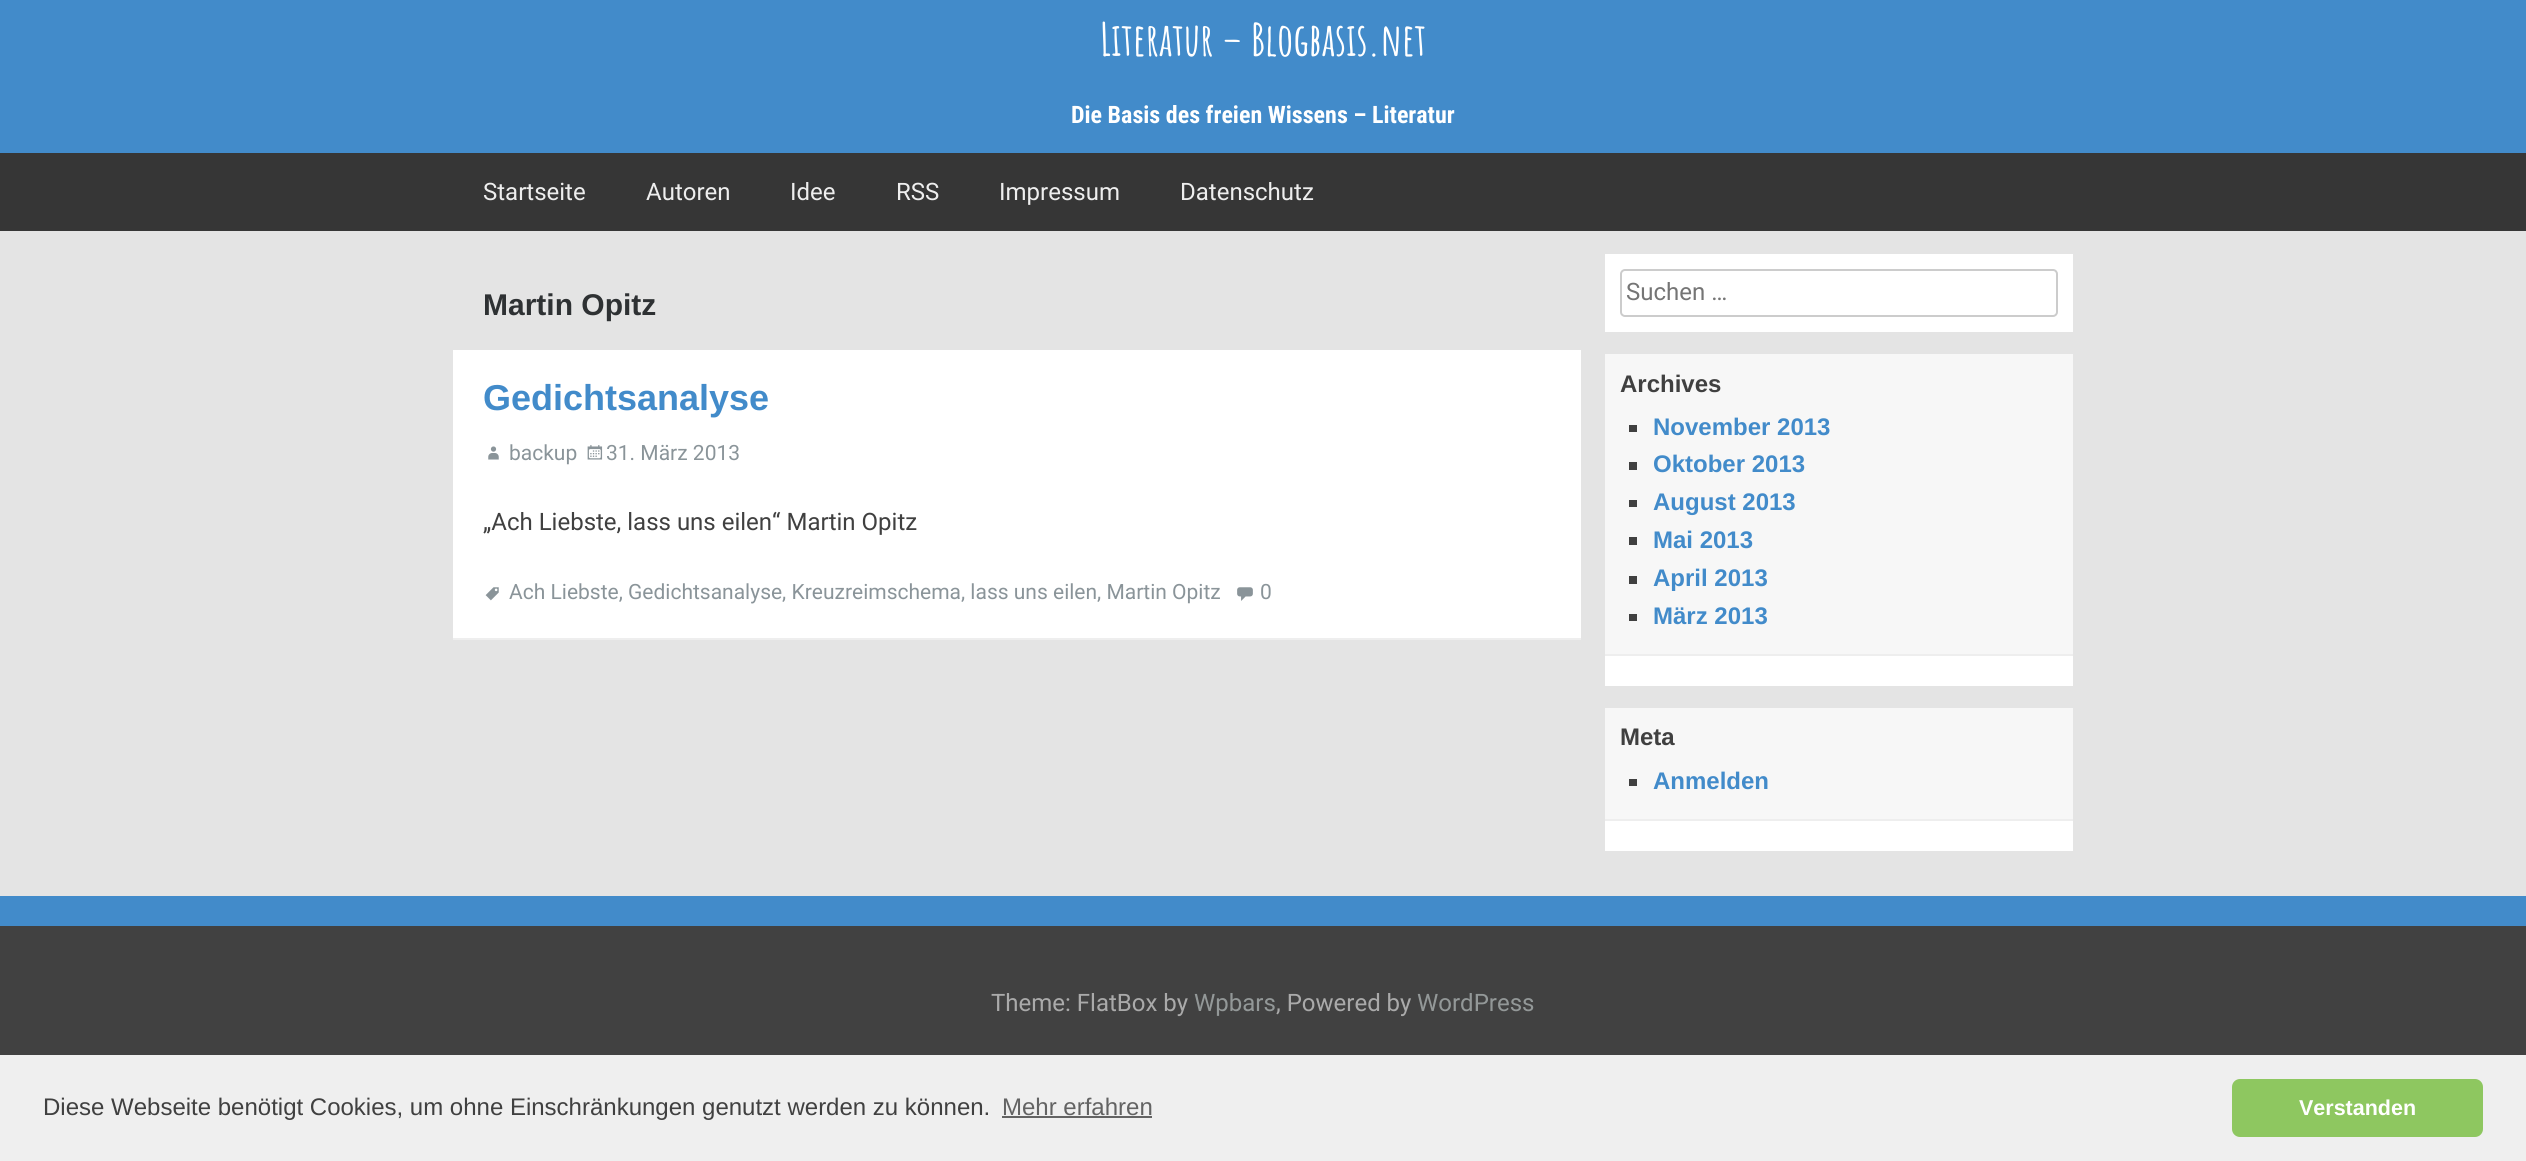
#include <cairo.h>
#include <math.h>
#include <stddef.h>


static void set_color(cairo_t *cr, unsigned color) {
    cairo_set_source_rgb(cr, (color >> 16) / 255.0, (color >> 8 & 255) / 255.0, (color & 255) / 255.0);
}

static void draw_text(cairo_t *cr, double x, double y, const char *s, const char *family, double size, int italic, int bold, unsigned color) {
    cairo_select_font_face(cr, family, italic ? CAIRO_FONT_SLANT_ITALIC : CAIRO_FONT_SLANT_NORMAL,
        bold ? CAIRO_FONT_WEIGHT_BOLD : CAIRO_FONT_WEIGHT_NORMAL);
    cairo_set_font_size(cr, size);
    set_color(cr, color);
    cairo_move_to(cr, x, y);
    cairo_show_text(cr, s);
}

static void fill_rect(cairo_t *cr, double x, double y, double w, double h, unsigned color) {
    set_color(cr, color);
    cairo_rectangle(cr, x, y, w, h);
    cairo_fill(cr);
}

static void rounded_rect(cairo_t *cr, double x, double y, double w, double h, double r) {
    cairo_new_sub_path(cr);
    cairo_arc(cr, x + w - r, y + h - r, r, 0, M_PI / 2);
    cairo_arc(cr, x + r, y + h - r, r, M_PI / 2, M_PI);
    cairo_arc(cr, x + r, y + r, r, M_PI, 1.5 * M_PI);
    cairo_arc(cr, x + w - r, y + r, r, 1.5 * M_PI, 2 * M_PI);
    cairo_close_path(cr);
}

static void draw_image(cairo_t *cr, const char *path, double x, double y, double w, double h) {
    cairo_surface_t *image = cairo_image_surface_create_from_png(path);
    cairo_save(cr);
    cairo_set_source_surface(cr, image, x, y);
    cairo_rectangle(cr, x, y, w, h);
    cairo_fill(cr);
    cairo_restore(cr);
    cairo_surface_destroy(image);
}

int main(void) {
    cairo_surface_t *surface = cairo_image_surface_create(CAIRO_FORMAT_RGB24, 2526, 1161);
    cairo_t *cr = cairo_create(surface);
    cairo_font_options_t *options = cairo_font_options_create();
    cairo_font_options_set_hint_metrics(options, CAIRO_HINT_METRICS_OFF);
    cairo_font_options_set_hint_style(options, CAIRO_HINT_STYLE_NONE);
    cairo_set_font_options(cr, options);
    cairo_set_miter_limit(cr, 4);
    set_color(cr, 0xE4E4E4);
    cairo_paint(cr);
    fill_rect(cr, 0, 153, 2526, 78, 0x363636);
    fill_rect(cr, 0, 0, 2526, 153, 0x428BCA);
    draw_text(cr, 1100, 56, "Literatur – Blogbasis.net", "Amatic SC", 45, 0, 1, 0xFFFFFF);
    draw_text(cr, 1071, 123, "Die Basis des freien Wissens – Literatur", "Roboto Condensed", 24, 0, 1, 0xFFFFFF);
    draw_text(cr, 483, 200, "Startseite", "Roboto", 24, 0, 0, 0xEEEEEE);
    draw_text(cr, 646, 200, "Autoren", "Roboto", 24, 0, 0, 0xEEEEEE);
    draw_text(cr, 790, 200, "Idee", "Roboto", 24, 0, 0, 0xEEEEEE);
    draw_text(cr, 896, 200, "RSS", "Roboto", 24, 0, 0, 0xEEEEEE);
    draw_text(cr, 999, 200, "Impressum", "Roboto", 24, 0, 0, 0xEEEEEE);
    draw_text(cr, 1180, 200, "Datenschutz", "Roboto", 24, 0, 0, 0xEEEEEE);
    draw_text(cr, 483, 315, "Martin Opitz", "Liberation Sans", 30, 0, 1, 0x2E3133);
    fill_rect(cr, 453, 350, 1128, 288, 0xFFFFFF);
    fill_rect(cr, 453, 638, 1128, 2, 0xEEEEEE);
    draw_text(cr, 483, 410, "Gedichtsanalyse", "Liberation Sans", 36, 0, 1, 0x428BCA);
    draw_image(cr, "assets/img1.png", 488, 446, 11, 14);
    draw_text(cr, 509, 460, "backup", "Roboto", 21, 0, 0, 0x8A9499);
    draw_image(cr, "assets/img2.png", 587, 445, 16, 15);
    draw_text(cr, 606, 460, "31. März 2013", "Roboto", 21, 0, 0, 0x8A9499);
    draw_text(cr, 483, 530, "„Ach Liebste, lass uns eilen“ Martin Opitz", "Roboto", 24, 0, 0, 0x404040);
    draw_image(cr, "assets/img3.png", 485, 587, 14, 14);
    draw_text(cr, 509, 599, "Ach Liebste, Gedichtsanalyse, Kreuzreimschema, lass uns eilen, Martin Opitz", "Roboto", 21, 0, 0, 0x8A9499);
    draw_image(cr, "assets/img4.png", 1237, 587, 16, 14);
    draw_text(cr, 1260, 599, "0", "Roboto", 21, 0, 0, 0x8A9499);
    fill_rect(cr, 1605, 254, 468, 78, 0xFFFFFF);
    rounded_rect(cr, 1621, 270, 436, 46, 4);
    set_color(cr, 0xCCCCCC);
    cairo_stroke(cr);
    draw_text(cr, 1626, 300, "Suchen …", "Roboto", 24, 0, 0, 0x757575);
    fill_rect(cr, 1605, 656, 468, 30, 0xFFFFFF);
    fill_rect(cr, 1605, 354, 468, 300, 0xF7F7F7);
    fill_rect(cr, 1605, 654, 468, 2, 0xEEEEEE);
    draw_text(cr, 1620, 392, "Archives", "Liberation Sans", 24, 0, 1, 0x404040);
    fill_rect(cr, 1629, 425, 8, 7, 0x404040);
    draw_text(cr, 1653, 435, "November 2013", "Liberation Sans", 24, 0, 1, 0x428BCA);
    fill_rect(cr, 1629, 462, 8, 8, 0x404040);
    draw_text(cr, 1653, 472, "Oktober 2013", "Liberation Sans", 24, 0, 1, 0x428BCA);
    fill_rect(cr, 1629, 500, 8, 7, 0x404040);
    draw_text(cr, 1653, 510, "August 2013", "Liberation Sans", 24, 0, 1, 0x428BCA);
    fill_rect(cr, 1629, 537, 8, 8, 0x404040);
    draw_text(cr, 1653, 548, "Mai 2013", "Liberation Sans", 24, 0, 1, 0x428BCA);
    fill_rect(cr, 1629, 576, 8, 8, 0x404040);
    draw_text(cr, 1653, 586, "April 2013", "Liberation Sans", 24, 0, 1, 0x428BCA);
    fill_rect(cr, 1629, 614, 8, 7, 0x404040);
    draw_text(cr, 1653, 624, "März 2013", "Liberation Sans", 24, 0, 1, 0x428BCA);
    fill_rect(cr, 1605, 821, 468, 30, 0xFFFFFF);
    fill_rect(cr, 1605, 708, 468, 111, 0xF7F7F7);
    fill_rect(cr, 1605, 819, 468, 2, 0xEEEEEE);
    draw_text(cr, 1620, 745, "Meta", "Liberation Sans", 24, 0, 1, 0x404040);
    fill_rect(cr, 1629, 779, 8, 7, 0x404040);
    draw_text(cr, 1653, 789, "Anmelden", "Liberation Sans", 24, 0, 1, 0x428BCA);
    fill_rect(cr, 0, 926, 2526, 129, 0x414141);
    fill_rect(cr, 0, 896, 2526, 30, 0x428BCA);
    draw_text(cr, 991, 1011, "Theme: FlatBox by", "Roboto", 24, 0, 0, 0xAAAAAA);
    draw_text(cr, 1194, 1011, "Wpbars", "Roboto", 24, 0, 0, 0x939898);
    draw_text(cr, 1276, 1011, ", Powered by", "Roboto", 24, 0, 0, 0xAAAAAA);
    draw_text(cr, 1417, 1011, "WordPress", "Roboto", 24, 0, 0, 0x939898);
    fill_rect(cr, 0, 1055, 2526, 106, 0xEFEFEF);
    draw_text(cr, 43, 1115, "Diese Webseite benötigt Cookies, um ohne Einschränkungen genutzt werden zu können.", "Liberation Sans", 24, 0, 0, 0x404040);
    draw_text(cr, 1002, 1115, "Mehr erfahren", "Liberation Sans", 24, 0, 0, 0x636363);
    fill_rect(cr, 1002, 1116, 150, 2, 0x636363);
    set_color(cr, 0x8EC760);
    rounded_rect(cr, 2232, 1079, 251, 58, 8);
    cairo_fill(cr);
    draw_text(cr, 2299, 1115, "Verstanden", "Liberation Sans", 21.5, 0, 1, 0xFFFFFF);
    cairo_surface_write_to_png(surface, "output.png");
    cairo_font_options_destroy(options);
    cairo_destroy(cr);
    cairo_surface_destroy(surface);
    return 0;
}
